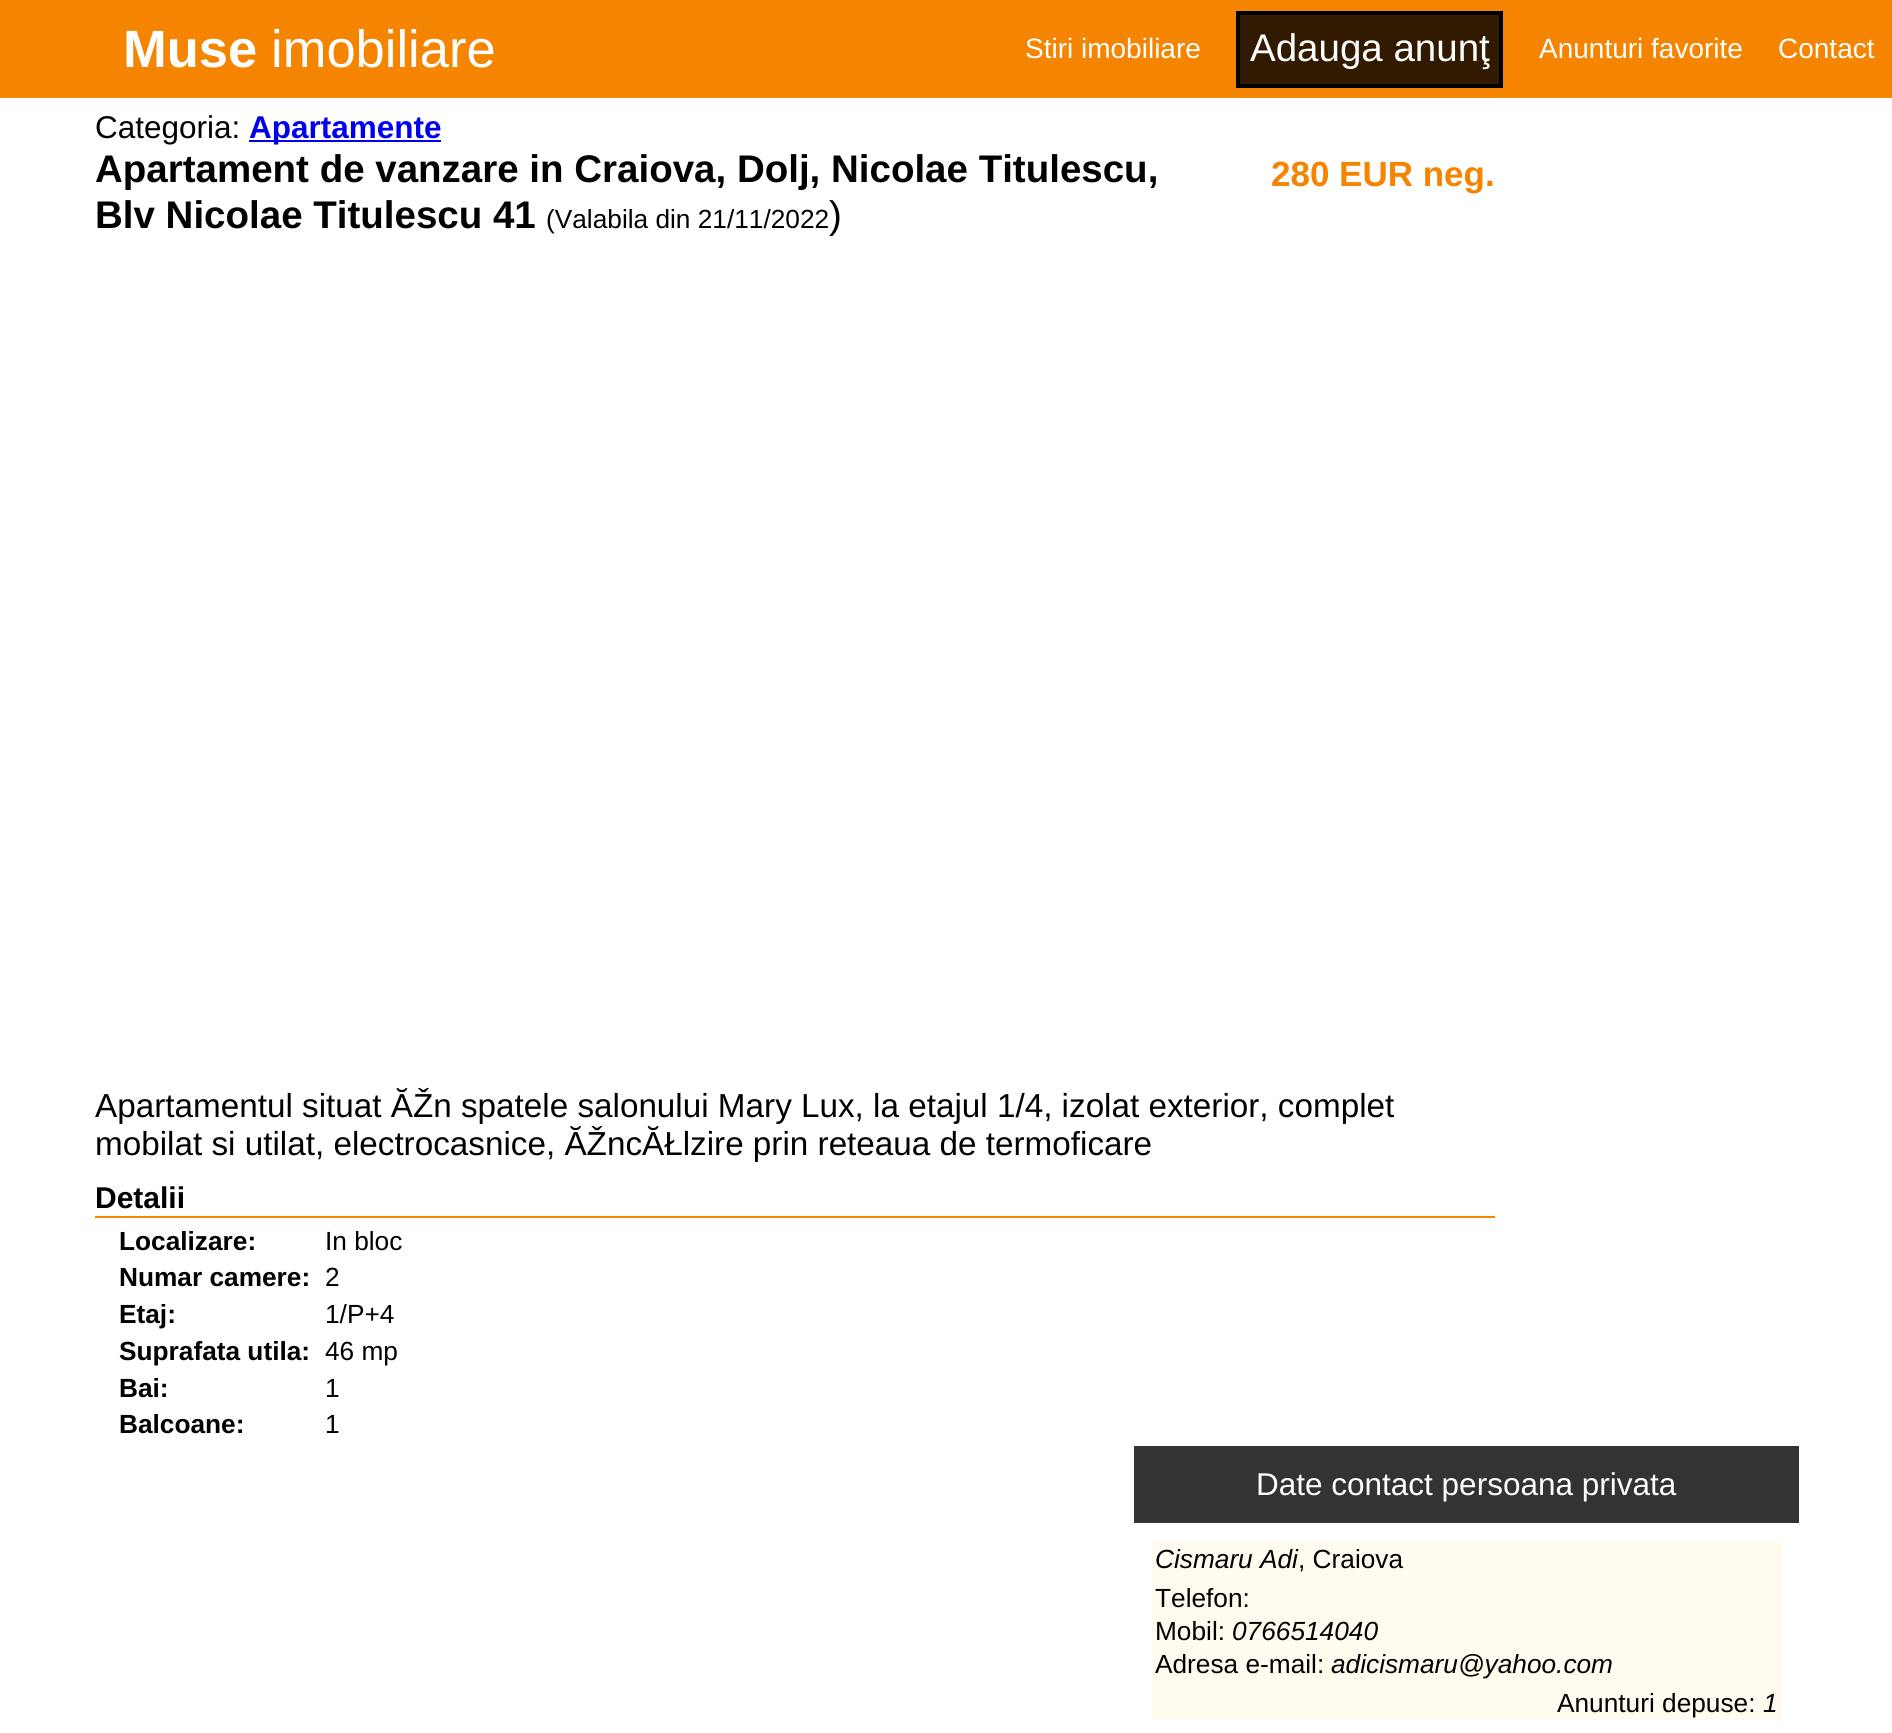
#include <cairo.h>
#include <math.h>
#include <stddef.h>


static void set_color(cairo_t *cr, unsigned color) {
    cairo_set_source_rgb(cr, (color >> 16) / 255.0, (color >> 8 & 255) / 255.0, (color & 255) / 255.0);
}

static void draw_text(cairo_t *cr, double x, double y, const char *s, const char *family, double size, int italic, int bold, unsigned color) {
    cairo_select_font_face(cr, family, italic ? CAIRO_FONT_SLANT_ITALIC : CAIRO_FONT_SLANT_NORMAL,
        bold ? CAIRO_FONT_WEIGHT_BOLD : CAIRO_FONT_WEIGHT_NORMAL);
    cairo_set_font_size(cr, size);
    set_color(cr, color);
    cairo_move_to(cr, x, y);
    cairo_show_text(cr, s);
}

static void fill_rect(cairo_t *cr, double x, double y, double w, double h, unsigned color) {
    set_color(cr, color);
    cairo_rectangle(cr, x, y, w, h);
    cairo_fill(cr);
}

int main(void) {
    cairo_surface_t *surface = cairo_image_surface_create(CAIRO_FORMAT_RGB24, 1892, 1733);
    cairo_t *cr = cairo_create(surface);
    cairo_font_options_t *options = cairo_font_options_create();
    cairo_font_options_set_hint_metrics(options, CAIRO_HINT_METRICS_OFF);
    cairo_font_options_set_hint_style(options, CAIRO_HINT_STYLE_NONE);
    cairo_set_font_options(cr, options);
    cairo_set_miter_limit(cr, 4);
    set_color(cr, 0xFFFFFF);
    cairo_paint(cr);
    fill_rect(cr, 0, 0, 1892, 98, 0xF58400);
    draw_text(cr, 123, 67, "Muse", "Liberation Sans", 52.5, 0, 1, 0xFFFFFF);
    draw_text(cr, 271, 67, "imobiliare", "Liberation Sans", 52.5, 0, 0, 0xFFFFFF);
    draw_text(cr, 1025, 58, "Stiri imobiliare", "Liberation Sans", 28, 0, 0, 0xFFFFFF);
    set_color(cr, 0x311A00);
    cairo_rectangle(cr, 1238, 13, 263, 73);
    cairo_fill_preserve(cr);
    set_color(cr, 0x000000);
    cairo_set_line_width(cr, 4);
    cairo_stroke(cr);
    draw_text(cr, 1250, 61, "Adauga anunţ", "Liberation Sans", 38.5, 0, 0, 0xFFFFFF);
    draw_text(cr, 1539, 58, "Anunturi favorite", "Liberation Sans", 28, 0, 0, 0xFFFFFF);
    draw_text(cr, 1778, 58, "Contact", "Liberation Sans", 28, 0, 0, 0xFFFFFF);
    draw_text(cr, 95, 138, "Categoria:", "Liberation Sans", 31.5, 0, 0, 0x000000);
    fill_rect(cr, 249, 140, 192, 2, 0x0000EE);
    draw_text(cr, 249, 138, "Apartamente", "Liberation Sans", 31.5, 0, 1, 0x0000EE);
    draw_text(cr, 95, 182, "Apartament de vanzare in Craiova, Dolj, Nicolae Titulescu,", "Liberation Sans", 38.5, 0, 1, 0x000000);
    draw_text(cr, 95, 228, "Blv Nicolae Titulescu 41", "Liberation Sans", 38.5, 0, 1, 0x000000);
    draw_text(cr, 546, 228, "(Valabila din 21/11/2022", "Liberation Sans", 26.25, 0, 0, 0x000000);
    draw_text(cr, 829, 228, ")", "Liberation Sans", 38.5, 0, 0, 0x000000);
    draw_text(cr, 1271, 186, "280 EUR neg.", "Liberation Sans", 35, 0, 1, 0xF58400);
    draw_text(cr, 95, 1117, "Apartamentul situat ĂŽn spatele salonului Mary Lux, la etajul 1/4, izolat exterior, complet", "Liberation Sans", 33.25, 0, 0, 0x000000);
    draw_text(cr, 95, 1155, "mobilat si utilat, electrocasnice, ĂŽncĂŁlzire prin reteaua de termoficare", "Liberation Sans", 33.25, 0, 0, 0x000000);
    draw_text(cr, 95, 1208, "Detalii", "Liberation Sans", 30, 0, 1, 0x000000);
    fill_rect(cr, 95, 1216, 1400, 2, 0xF58400);
    draw_text(cr, 119, 1250, "Localizare:", "Liberation Sans", 26.25, 0, 1, 0x000000);
    draw_text(cr, 325, 1250, "In bloc", "Liberation Sans", 26.25, 0, 0, 0x000000);
    draw_text(cr, 119, 1286, "Numar camere:", "Liberation Sans", 26.25, 0, 1, 0x000000);
    draw_text(cr, 325, 1286, "2", "Liberation Sans", 26.25, 0, 0, 0x000000);
    draw_text(cr, 119, 1323, "Etaj:", "Liberation Sans", 26.25, 0, 1, 0x000000);
    draw_text(cr, 325, 1323, "1/P+4", "Liberation Sans", 26.25, 0, 0, 0x000000);
    draw_text(cr, 119, 1360, "Suprafata utila:", "Liberation Sans", 26.25, 0, 1, 0x000000);
    draw_text(cr, 325, 1360, "46 mp", "Liberation Sans", 26.25, 0, 0, 0x000000);
    draw_text(cr, 119, 1397, "Bai:", "Liberation Sans", 26.25, 0, 1, 0x000000);
    draw_text(cr, 325, 1397, "1", "Liberation Sans", 26.25, 0, 0, 0x000000);
    draw_text(cr, 119, 1433, "Balcoane:", "Liberation Sans", 26.25, 0, 1, 0x000000);
    draw_text(cr, 325, 1433, "1", "Liberation Sans", 26.25, 0, 0, 0x000000);
    fill_rect(cr, 1134, 1446, 665, 77, 0x333333);
    draw_text(cr, 1256, 1495, "Date contact persoana privata", "Liberation Sans", 31.5, 0, 0, 0xFFFFFF);
    fill_rect(cr, 1152, 1540, 630, 180, 0xFFFBEF);
    draw_text(cr, 1155, 1568, "Cismaru Adi", "Liberation Sans", 26.25, 1, 0, 0x000000);
    draw_text(cr, 1298, 1568, ", Craiova", "Liberation Sans", 26.25, 0, 0, 0x000000);
    draw_text(cr, 1155, 1607, "Telefon:", "Liberation Sans", 26.25, 0, 0, 0x000000);
    draw_text(cr, 1155, 1640, "Mobil:", "Liberation Sans", 26.25, 0, 0, 0x000000);
    draw_text(cr, 1232, 1640, "0766514040", "Liberation Sans", 26.25, 1, 0, 0x000000);
    draw_text(cr, 1155, 1673, "Adresa e-mail:", "Liberation Sans", 26.25, 0, 0, 0x000000);
    draw_text(cr, 1331, 1673, "adicismaru@yahoo.com", "Liberation Sans", 26.25, 1, 0, 0x000000);
    draw_text(cr, 1557, 1712, "Anunturi depuse:", "Liberation Sans", 26.25, 0, 0, 0x000000);
    draw_text(cr, 1763, 1712, "1", "Liberation Sans", 26.25, 1, 0, 0x000000);
    cairo_surface_write_to_png(surface, "output.png");
    cairo_font_options_destroy(options);
    cairo_destroy(cr);
    cairo_surface_destroy(surface);
    return 0;
}
